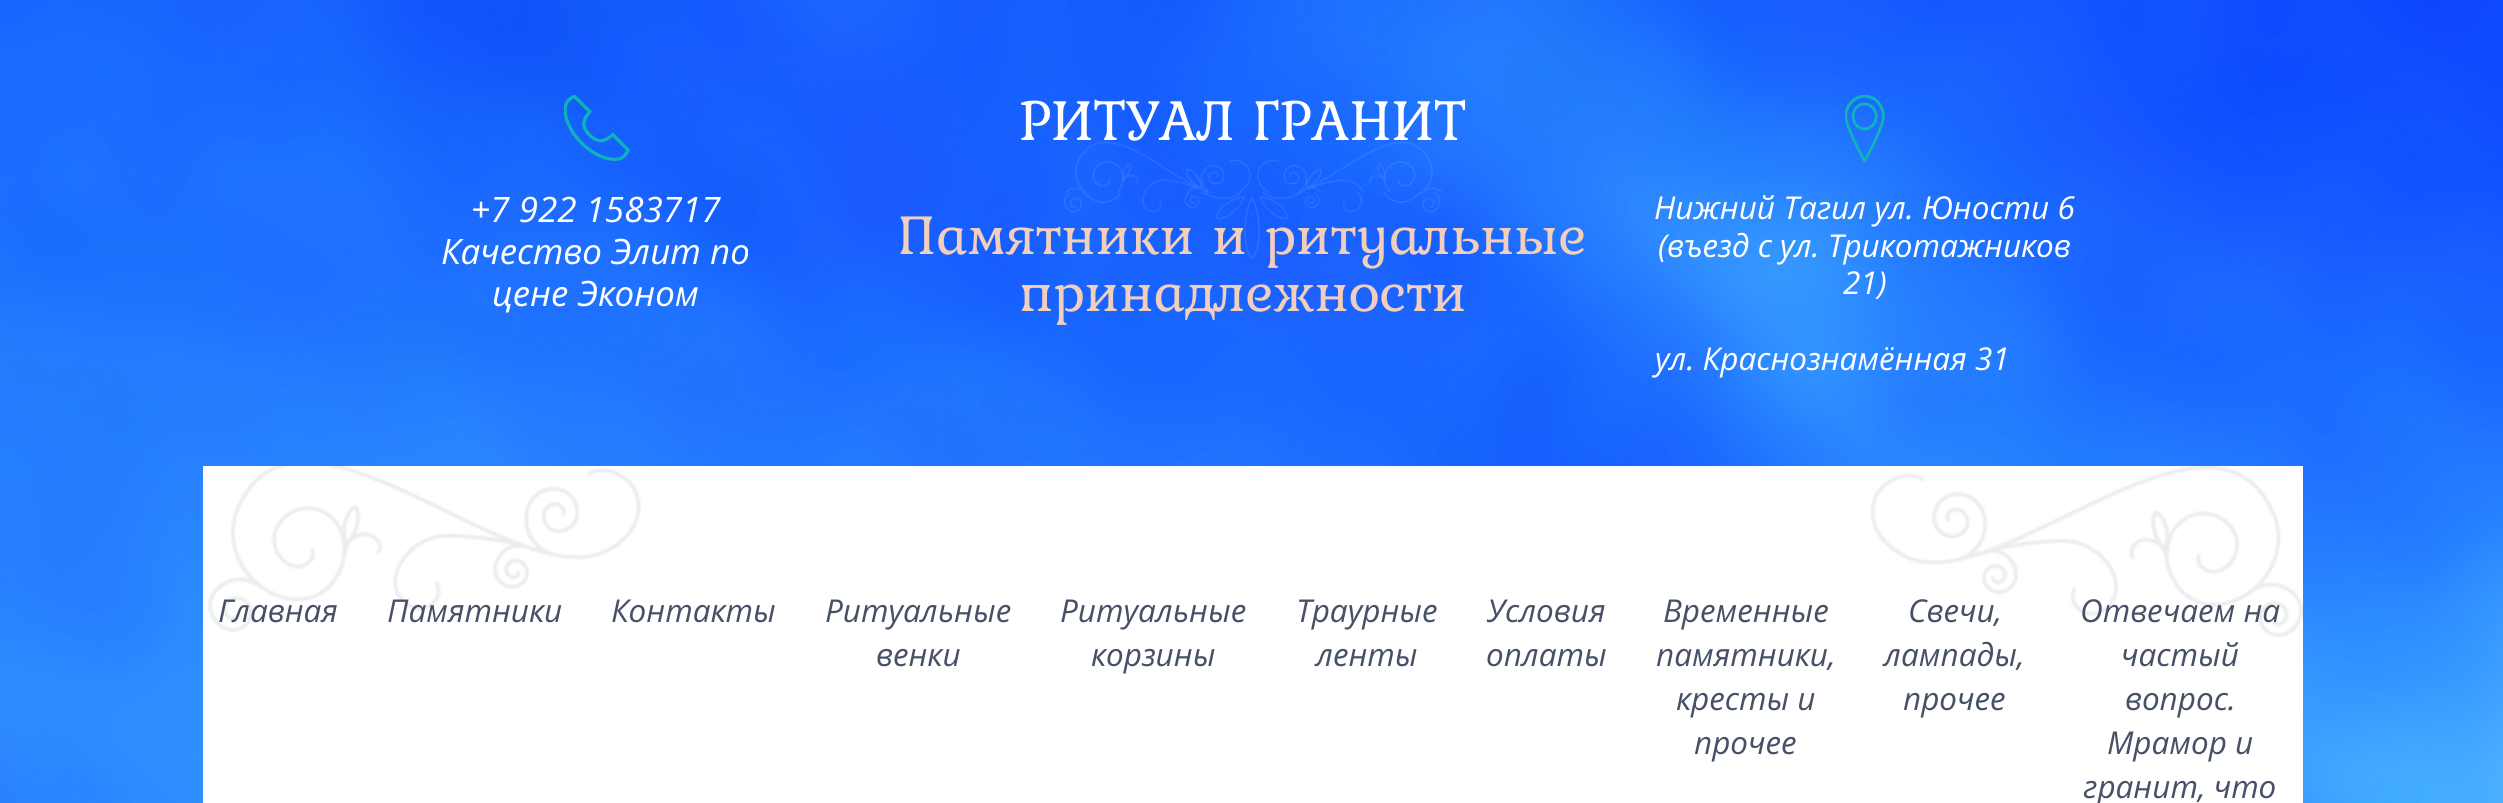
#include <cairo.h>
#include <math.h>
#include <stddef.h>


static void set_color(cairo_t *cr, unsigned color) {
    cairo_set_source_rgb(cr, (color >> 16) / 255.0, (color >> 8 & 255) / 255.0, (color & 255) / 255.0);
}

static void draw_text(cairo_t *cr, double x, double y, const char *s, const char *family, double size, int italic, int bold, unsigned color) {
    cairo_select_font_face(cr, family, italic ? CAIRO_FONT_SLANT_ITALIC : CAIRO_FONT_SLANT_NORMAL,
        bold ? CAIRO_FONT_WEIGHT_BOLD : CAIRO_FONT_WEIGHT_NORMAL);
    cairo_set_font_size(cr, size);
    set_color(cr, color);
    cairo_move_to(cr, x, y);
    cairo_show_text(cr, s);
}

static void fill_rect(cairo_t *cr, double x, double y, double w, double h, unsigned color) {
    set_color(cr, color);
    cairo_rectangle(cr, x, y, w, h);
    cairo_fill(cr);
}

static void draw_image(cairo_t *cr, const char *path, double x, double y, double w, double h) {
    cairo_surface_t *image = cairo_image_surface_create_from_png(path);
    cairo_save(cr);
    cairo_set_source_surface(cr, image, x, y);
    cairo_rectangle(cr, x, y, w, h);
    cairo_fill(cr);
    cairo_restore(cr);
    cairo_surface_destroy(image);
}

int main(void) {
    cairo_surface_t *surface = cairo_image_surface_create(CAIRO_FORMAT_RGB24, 2503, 803);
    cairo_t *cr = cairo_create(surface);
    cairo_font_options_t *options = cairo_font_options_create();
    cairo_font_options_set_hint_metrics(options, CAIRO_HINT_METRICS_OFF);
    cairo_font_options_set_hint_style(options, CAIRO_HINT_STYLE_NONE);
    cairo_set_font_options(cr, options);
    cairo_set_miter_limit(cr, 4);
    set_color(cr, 0xFFFFFF);
    cairo_paint(cr);
    draw_image(cr, "assets/img1.png", 0, 0, 2503, 803);
    draw_image(cr, "assets/img2.png", 564, 95, 66, 66);
    draw_text(cr, 471, 222, "+7 922 1583717", "Open Sans", 35, 1, 0, 0xFFFFFF);
    draw_text(cr, 441, 264, "Качество Элит по", "Open Sans", 35, 1, 0, 0xFFFFFF);
    draw_text(cr, 492, 306, "цене Эконом", "Open Sans", 35, 1, 0, 0xFFFFFF);
    draw_image(cr, "assets/img3.png", 1065, 141, 378, 52);
    draw_text(cr, 1019, 140, "РИТУАЛ ГРАНИТ", "Kurale", 59.5, 0, 0, 0xFFFFFF);
    draw_image(cr, "assets/img4.png", 1064, 192, 377, 67);
    draw_text(cr, 898, 254, "Памятники и ритуальные", "Kurale", 57.75, 0, 0, 0xF2CEBD);
    draw_text(cr, 1019, 311, "принадлежности", "Kurale", 57.75, 0, 0, 0xF2CEBD);
    draw_image(cr, "assets/img5.png", 1845, 95, 40, 68);
    draw_text(cr, 1654, 219, "Нижний Тагил ул. Юности 6", "Open Sans", 31.5, 1, 0, 0xFFFFFF);
    draw_text(cr, 1658, 257, "(въезд с ул. Трикотажников", "Open Sans", 31.5, 1, 0, 0xFFFFFF);
    draw_text(cr, 1843, 294, "21)", "Open Sans", 31.5, 1, 0, 0xFFFFFF);
    draw_text(cr, 1655, 370, "ул. Краснознамённая 31", "Open Sans", 31.5, 1, 0, 0xFFFFFF);
    fill_rect(cr, 203, 466, 2100, 337, 0xFFFFFF);
    draw_image(cr, "assets/img6.png", 208, 465, 2095, 172);
    draw_text(cr, 218, 622, "Главная", "Open Sans", 31.5, 1, 0, 0x465066);
    draw_text(cr, 387, 622, "Памятники", "Open Sans", 31.5, 1, 0, 0x465066);
    draw_text(cr, 611, 622, "Контакты", "Open Sans", 31.5, 1, 0, 0x465066);
    draw_text(cr, 825, 622, "Ритуальные", "Open Sans", 31.5, 1, 0, 0x465066);
    draw_text(cr, 876, 666, "венки", "Open Sans", 31.5, 1, 0, 0x465066);
    draw_text(cr, 1060, 622, "Ритуальные", "Open Sans", 31.5, 1, 0, 0x465066);
    draw_text(cr, 1091, 666, "корзины", "Open Sans", 31.5, 1, 0, 0x465066);
    draw_text(cr, 1296, 622, "Траурные", "Open Sans", 31.5, 1, 0, 0x465066);
    draw_text(cr, 1316, 666, "ленты", "Open Sans", 31.5, 1, 0, 0x465066);
    draw_text(cr, 1487, 622, "Условия", "Open Sans", 31.5, 1, 0, 0x465066);
    draw_text(cr, 1486, 666, "оплаты", "Open Sans", 31.5, 1, 0, 0x465066);
    draw_text(cr, 1663, 622, "Временные", "Open Sans", 31.5, 1, 0, 0x465066);
    draw_text(cr, 1656, 666, "памятники,", "Open Sans", 31.5, 1, 0, 0x465066);
    draw_text(cr, 1676, 710, "кресты и", "Open Sans", 31.5, 1, 0, 0x465066);
    draw_text(cr, 1694, 754, "прочее", "Open Sans", 31.5, 1, 0, 0x465066);
    draw_text(cr, 1908, 622, "Свечи,", "Open Sans", 31.5, 1, 0, 0x465066);
    draw_text(cr, 1884, 666, "лампады,", "Open Sans", 31.5, 1, 0, 0x465066);
    draw_text(cr, 1903, 710, "прочее", "Open Sans", 31.5, 1, 0, 0x465066);
    draw_text(cr, 2080, 622, "Отвечаем на", "Open Sans", 31.5, 1, 0, 0x465066);
    draw_text(cr, 2121, 666, "частый", "Open Sans", 31.5, 1, 0, 0x465066);
    draw_text(cr, 2125, 710, "вопрос.", "Open Sans", 31.5, 1, 0, 0x465066);
    draw_text(cr, 2107, 754, "Мрамор и", "Open Sans", 31.5, 1, 0, 0x465066);
    draw_text(cr, 2083, 798, "гранит, что", "Open Sans", 31.5, 1, 0, 0x465066);
    cairo_surface_write_to_png(surface, "output.png");
    cairo_font_options_destroy(options);
    cairo_destroy(cr);
    cairo_surface_destroy(surface);
    return 0;
}
